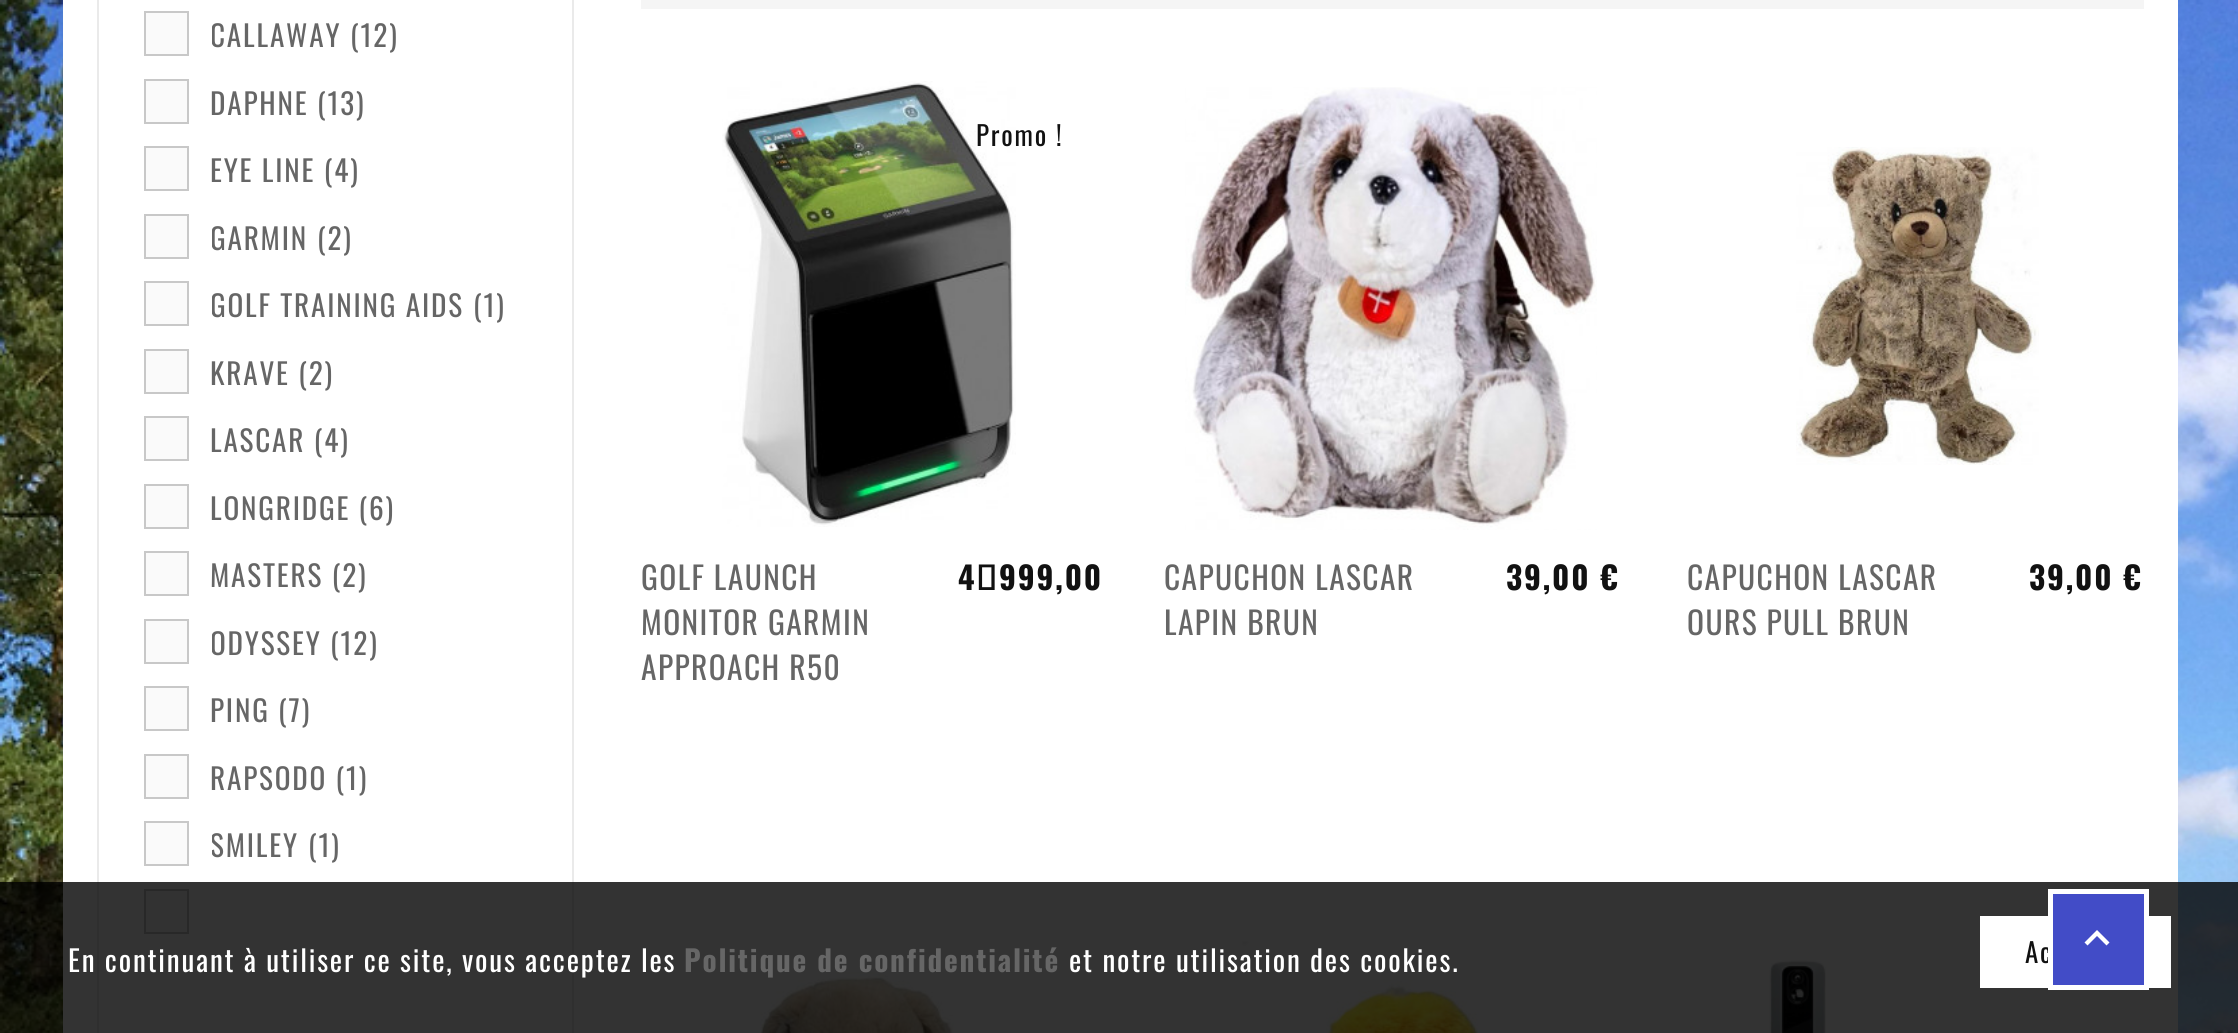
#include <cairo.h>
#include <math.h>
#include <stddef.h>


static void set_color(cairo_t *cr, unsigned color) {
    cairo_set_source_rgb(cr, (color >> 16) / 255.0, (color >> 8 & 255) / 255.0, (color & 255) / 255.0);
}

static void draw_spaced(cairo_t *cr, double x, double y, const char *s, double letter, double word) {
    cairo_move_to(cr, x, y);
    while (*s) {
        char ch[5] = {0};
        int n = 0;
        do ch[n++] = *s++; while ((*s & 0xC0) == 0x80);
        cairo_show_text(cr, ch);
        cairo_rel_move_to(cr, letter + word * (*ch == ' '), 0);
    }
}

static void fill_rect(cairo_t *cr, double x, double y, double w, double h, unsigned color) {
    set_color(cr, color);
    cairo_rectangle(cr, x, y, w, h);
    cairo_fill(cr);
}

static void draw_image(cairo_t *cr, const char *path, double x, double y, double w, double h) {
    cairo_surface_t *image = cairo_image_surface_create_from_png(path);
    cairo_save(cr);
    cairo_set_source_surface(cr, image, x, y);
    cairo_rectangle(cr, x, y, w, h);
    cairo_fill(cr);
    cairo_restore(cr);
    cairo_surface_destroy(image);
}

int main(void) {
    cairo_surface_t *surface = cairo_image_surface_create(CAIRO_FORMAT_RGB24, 2238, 1033);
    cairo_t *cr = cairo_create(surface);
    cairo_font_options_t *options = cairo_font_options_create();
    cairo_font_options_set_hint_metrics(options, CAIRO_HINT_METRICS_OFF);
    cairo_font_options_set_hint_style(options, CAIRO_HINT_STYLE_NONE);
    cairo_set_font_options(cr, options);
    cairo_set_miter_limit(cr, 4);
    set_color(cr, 0xFFFFFF);
    cairo_paint(cr);
    draw_image(cr, "assets/img1.png", 0, 0, 2238, 1033);
    fill_rect(cr, 63, 0, 2115, 1033, 0xFFFFFF);
    cairo_rectangle(cr, 98, -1, 475, 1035);
    set_color(cr, 0xEAEAEA);
    cairo_stroke(cr);
    set_color(cr, 0xFAFAFA);
    cairo_rectangle(cr, 145, 12, 43, 43);
    cairo_fill_preserve(cr);
    set_color(cr, 0xC8C8C8);
    cairo_stroke(cr);
    cairo_save(cr);
    cairo_rectangle(cr, 212, 11, 315, 45);
    cairo_clip(cr);
    cairo_select_font_face(cr, "Oswald", CAIRO_FONT_SLANT_NORMAL, CAIRO_FONT_WEIGHT_NORMAL);
    cairo_set_font_size(cr, 29.25);
    set_color(cr, 0x666666);
    draw_spaced(cr, 210, 47, "CALLAWAY", 1.8, 0);
    cairo_restore(cr);
    cairo_select_font_face(cr, "Oswald", CAIRO_FONT_SLANT_NORMAL, CAIRO_FONT_WEIGHT_NORMAL);
    cairo_set_font_size(cr, 29.25);
    set_color(cr, 0x666666);
    draw_spaced(cr, 350, 47, "(12)", 1.8, 0);
    set_color(cr, 0xFAFAFA);
    cairo_rectangle(cr, 145, 80, 43, 43);
    cairo_fill_preserve(cr);
    set_color(cr, 0xC8C8C8);
    cairo_stroke(cr);
    set_color(cr, 0x666666);
    draw_spaced(cr, 210, 115, "DAPHNE (13)", 1.8, 0);
    set_color(cr, 0xFAFAFA);
    cairo_rectangle(cr, 145, 147, 43, 43);
    cairo_fill_preserve(cr);
    set_color(cr, 0xC8C8C8);
    cairo_stroke(cr);
    set_color(cr, 0x666666);
    draw_spaced(cr, 210, 182, "EYE LINE (4)", 1.8, 0);
    set_color(cr, 0xFAFAFA);
    cairo_rectangle(cr, 145, 215, 43, 43);
    cairo_fill_preserve(cr);
    set_color(cr, 0xC8C8C8);
    cairo_stroke(cr);
    cairo_save(cr);
    cairo_rectangle(cr, 212, 214, 315, 45);
    cairo_clip(cr);
    set_color(cr, 0x666666);
    draw_spaced(cr, 210, 250, "GARMIN", 1.8, 0);
    cairo_restore(cr);
    set_color(cr, 0x666666);
    draw_spaced(cr, 317, 250, "(2)", 1.8, 0);
    set_color(cr, 0xFAFAFA);
    cairo_rectangle(cr, 145, 282, 43, 43);
    cairo_fill_preserve(cr);
    set_color(cr, 0xC8C8C8);
    cairo_stroke(cr);
    cairo_save(cr);
    cairo_rectangle(cr, 212, 281, 315, 45);
    cairo_clip(cr);
    set_color(cr, 0x666666);
    draw_spaced(cr, 210, 317, "GOLF TRAINING AIDS", 1.8, 0);
    cairo_restore(cr);
    set_color(cr, 0x666666);
    draw_spaced(cr, 473, 317, "(1)", 1.8, 0);
    set_color(cr, 0xFAFAFA);
    cairo_rectangle(cr, 145, 350, 43, 43);
    cairo_fill_preserve(cr);
    set_color(cr, 0xC8C8C8);
    cairo_stroke(cr);
    set_color(cr, 0x666666);
    draw_spaced(cr, 210, 385, "KRAVE (2)", 1.8, 0);
    set_color(cr, 0xFAFAFA);
    cairo_rectangle(cr, 145, 417, 43, 43);
    cairo_fill_preserve(cr);
    set_color(cr, 0xC8C8C8);
    cairo_stroke(cr);
    set_color(cr, 0x666666);
    draw_spaced(cr, 210, 452, "LASCAR (4)", 1.8, 0);
    set_color(cr, 0xFAFAFA);
    cairo_rectangle(cr, 145, 485, 43, 43);
    cairo_fill_preserve(cr);
    set_color(cr, 0xC8C8C8);
    cairo_stroke(cr);
    set_color(cr, 0x666666);
    draw_spaced(cr, 210, 520, "LONGRIDGE (6)", 1.8, 0);
    set_color(cr, 0xFAFAFA);
    cairo_rectangle(cr, 145, 552, 43, 43);
    cairo_fill_preserve(cr);
    set_color(cr, 0xC8C8C8);
    cairo_stroke(cr);
    set_color(cr, 0x666666);
    draw_spaced(cr, 210, 587, "MASTERS (2)", 1.8, 0);
    set_color(cr, 0xFAFAFA);
    cairo_rectangle(cr, 145, 620, 43, 43);
    cairo_fill_preserve(cr);
    set_color(cr, 0xC8C8C8);
    cairo_stroke(cr);
    cairo_save(cr);
    cairo_rectangle(cr, 212, 619, 315, 45);
    cairo_clip(cr);
    set_color(cr, 0x666666);
    draw_spaced(cr, 210, 655, "ODYSSEY", 1.8, 0);
    cairo_restore(cr);
    set_color(cr, 0x666666);
    draw_spaced(cr, 330, 655, "(12)", 1.8, 0);
    set_color(cr, 0xFAFAFA);
    cairo_rectangle(cr, 145, 687, 43, 43);
    cairo_fill_preserve(cr);
    set_color(cr, 0xC8C8C8);
    cairo_stroke(cr);
    set_color(cr, 0x666666);
    draw_spaced(cr, 210, 722, "PING (7)", 1.8, 0);
    set_color(cr, 0xFAFAFA);
    cairo_rectangle(cr, 145, 755, 43, 43);
    cairo_fill_preserve(cr);
    set_color(cr, 0xC8C8C8);
    cairo_stroke(cr);
    set_color(cr, 0x666666);
    draw_spaced(cr, 210, 790, "RAPSODO (1)", 1.8, 0);
    set_color(cr, 0xFAFAFA);
    cairo_rectangle(cr, 145, 822, 43, 43);
    cairo_fill_preserve(cr);
    set_color(cr, 0xC8C8C8);
    cairo_stroke(cr);
    cairo_save(cr);
    cairo_rectangle(cr, 212, 821, 315, 45);
    cairo_clip(cr);
    set_color(cr, 0x666666);
    draw_spaced(cr, 210, 857, "SMILEY", 1.8, 0);
    cairo_restore(cr);
    set_color(cr, 0x666666);
    draw_spaced(cr, 308, 857, "(1)", 1.8, 0);
    set_color(cr, 0xFAFAFA);
    cairo_rectangle(cr, 145, 890, 43, 43);
    cairo_fill_preserve(cr);
    set_color(cr, 0xC8C8C8);
    cairo_stroke(cr);
    fill_rect(cr, 641, 0, 1503, 9, 0xF5F5F5);
    draw_image(cr, "assets/img2.png", 722, 81, 294, 446);
    cairo_set_font_size(cr, 27);
    set_color(cr, 0x111111);
    draw_spaced(cr, 976, 146, "Promo !", 1.8, 0);
    cairo_set_font_size(cr, 31.5);
    set_color(cr, 0x666666);
    draw_spaced(cr, 641, 590, "GOLF LAUNCH", 1.4, 0);
    draw_spaced(cr, 641, 635, "MONITOR GARMIN", 1.4, 0);
    draw_spaced(cr, 641, 680, "APPROACH R50", 1.4, 0);
    cairo_select_font_face(cr, "Oswald", CAIRO_FONT_SLANT_NORMAL, CAIRO_FONT_WEIGHT_BOLD);
    set_color(cr, 0x111111);
    draw_spaced(cr, 958, 590, "4 999,00", 1.8, 0);
    draw_image(cr, "assets/img3.png", 1185, 87, 412, 443);
    cairo_select_font_face(cr, "Oswald", CAIRO_FONT_SLANT_NORMAL, CAIRO_FONT_WEIGHT_NORMAL);
    set_color(cr, 0x666666);
    draw_spaced(cr, 1164, 590, "CAPUCHON LASCAR", 1.4, 0);
    draw_spaced(cr, 1164, 635, "LAPIN BRUN", 1.4, 0);
    cairo_select_font_face(cr, "Oswald", CAIRO_FONT_SLANT_NORMAL, CAIRO_FONT_WEIGHT_BOLD);
    set_color(cr, 0x111111);
    draw_spaced(cr, 1506, 590, "39,00 €", 1.8, 0);
    draw_image(cr, "assets/img4.png", 1796, 147, 243, 318);
    cairo_select_font_face(cr, "Oswald", CAIRO_FONT_SLANT_NORMAL, CAIRO_FONT_WEIGHT_NORMAL);
    set_color(cr, 0x666666);
    draw_spaced(cr, 1687, 590, "CAPUCHON LASCAR", 1.4, 0);
    draw_spaced(cr, 1687, 635, "OURS PULL BRUN", 1.4, 0);
    cairo_select_font_face(cr, "Oswald", CAIRO_FONT_SLANT_NORMAL, CAIRO_FONT_WEIGHT_BOLD);
    set_color(cr, 0x111111);
    draw_spaced(cr, 2029, 590, "39,00 €", 1.8, 0);
    draw_image(cr, "assets/img5.png", 760, 972, 194, 61);
    draw_image(cr, "assets/img6.png", 1242, 941, 236, 92);
    draw_image(cr, "assets/img7.png", 1769, 960, 57, 73);
    cairo_set_source_rgba(cr, 0, 0, 0, 0.8);
    cairo_rectangle(cr, 0, 882, 2238, 151);
    cairo_fill(cr);
    cairo_select_font_face(cr, "Oswald", CAIRO_FONT_SLANT_NORMAL, CAIRO_FONT_WEIGHT_NORMAL);
    cairo_set_font_size(cr, 29.25);
    set_color(cr, 0xFFFFFF);
    draw_spaced(cr, 68, 972, "En continuant à utiliser ce site, vous acceptez les", 1.8, 0);
    cairo_select_font_face(cr, "Oswald", CAIRO_FONT_SLANT_NORMAL, CAIRO_FONT_WEIGHT_BOLD);
    set_color(cr, 0x666666);
    draw_spaced(cr, 684, 972, "Politique de confidentialité", 1.8, 0);
    cairo_select_font_face(cr, "Oswald", CAIRO_FONT_SLANT_NORMAL, CAIRO_FONT_WEIGHT_NORMAL);
    set_color(cr, 0xFFFFFF);
    draw_spaced(cr, 1069, 972, "et notre utilisation des cookies.", 1.8, 0);
    fill_rect(cr, 1980, 916, 191, 72, 0xFFFFFF);
    cairo_set_font_size(cr, 27);
    set_color(cr, 0x111111);
    draw_spaced(cr, 2025, 963, "Ac", 1.8, 0);
    set_color(cr, 0x424CC7);
    cairo_rectangle(cr, 2050.5, 891.5, 96, 96);
    cairo_fill_preserve(cr);
    set_color(cr, 0xFFFFFF);
    cairo_set_line_width(cr, 5);
    cairo_stroke(cr);
    cairo_new_path(cr);
    cairo_move_to(cr, 2087.5, 945.5);
    cairo_line_to(cr, 2084.5, 942.5);
    cairo_line_to(cr, 2097, 930);
    cairo_line_to(cr, 2109.5, 942.5);
    cairo_line_to(cr, 2106.5, 945.5);
    cairo_line_to(cr, 2097, 936);
    cairo_close_path(cr);
    cairo_fill(cr);
    cairo_surface_write_to_png(surface, "output.png");
    cairo_font_options_destroy(options);
    cairo_destroy(cr);
    cairo_surface_destroy(surface);
    return 0;
}
